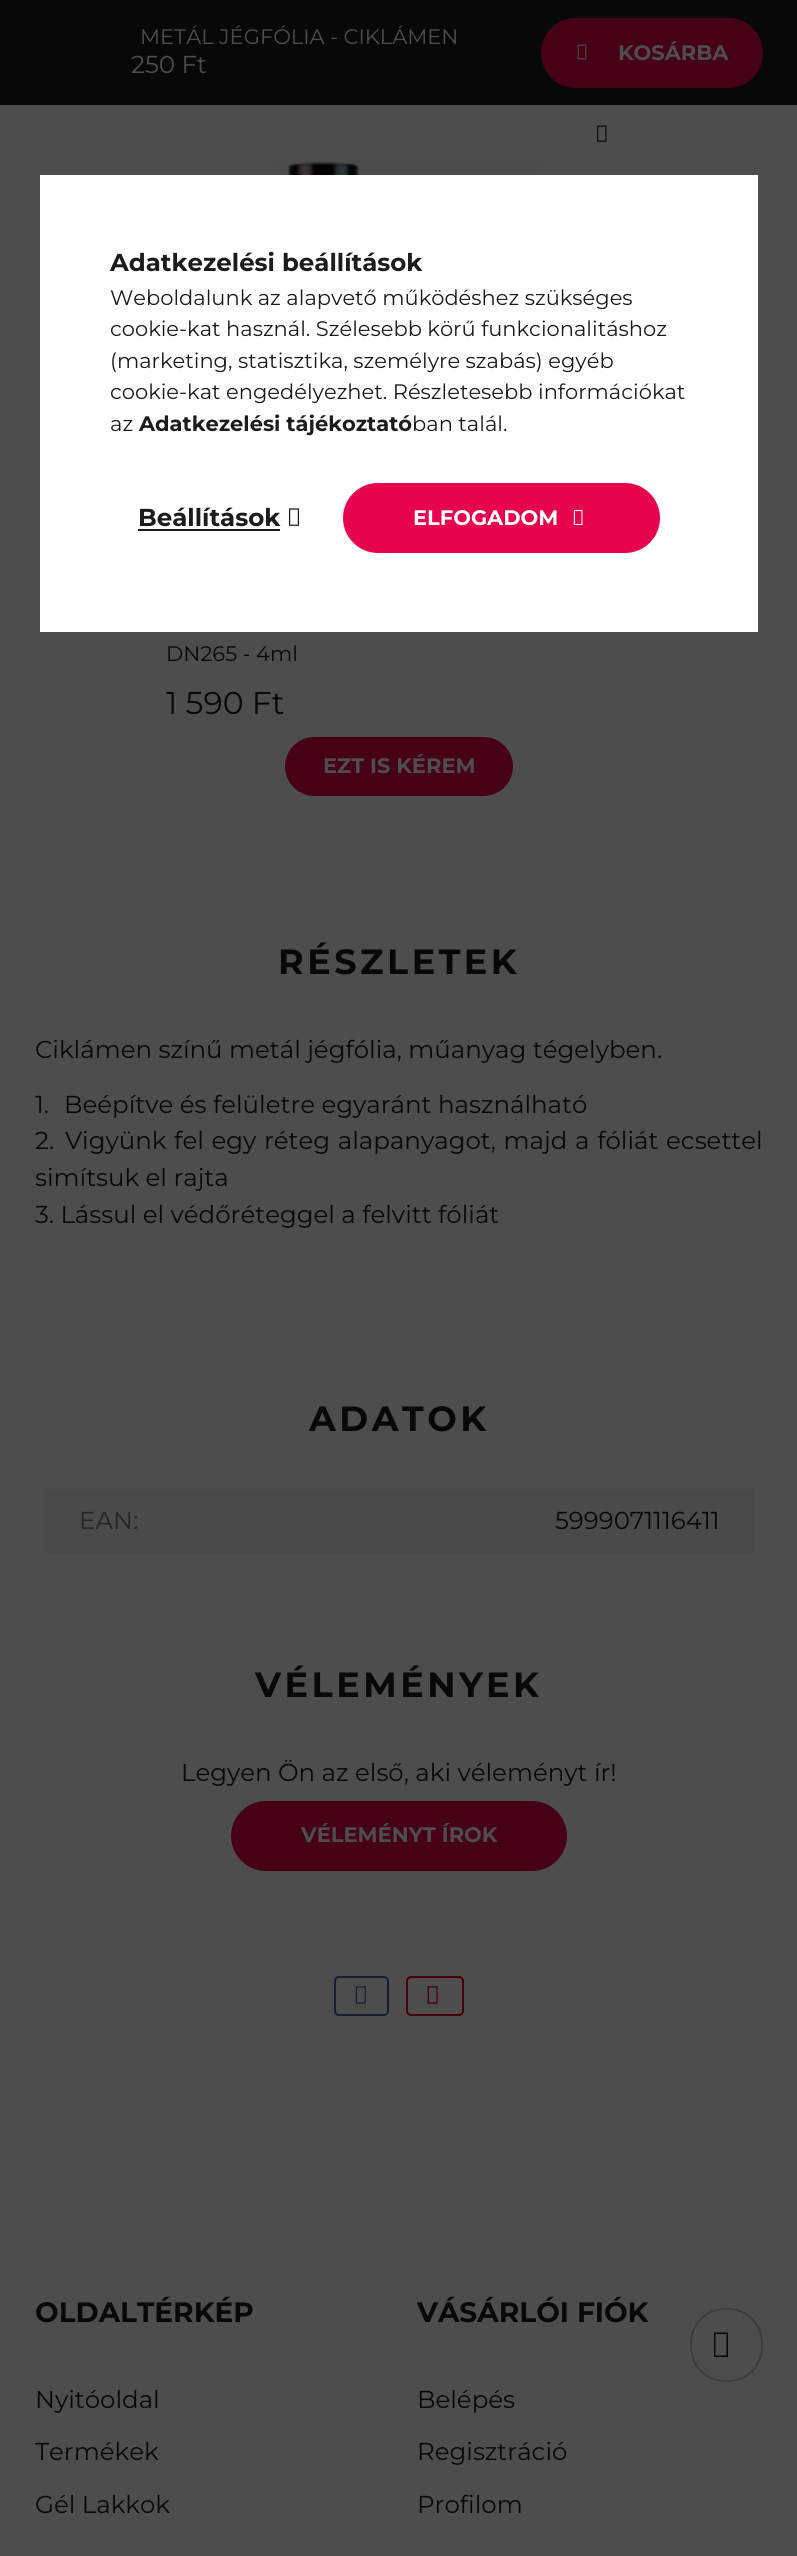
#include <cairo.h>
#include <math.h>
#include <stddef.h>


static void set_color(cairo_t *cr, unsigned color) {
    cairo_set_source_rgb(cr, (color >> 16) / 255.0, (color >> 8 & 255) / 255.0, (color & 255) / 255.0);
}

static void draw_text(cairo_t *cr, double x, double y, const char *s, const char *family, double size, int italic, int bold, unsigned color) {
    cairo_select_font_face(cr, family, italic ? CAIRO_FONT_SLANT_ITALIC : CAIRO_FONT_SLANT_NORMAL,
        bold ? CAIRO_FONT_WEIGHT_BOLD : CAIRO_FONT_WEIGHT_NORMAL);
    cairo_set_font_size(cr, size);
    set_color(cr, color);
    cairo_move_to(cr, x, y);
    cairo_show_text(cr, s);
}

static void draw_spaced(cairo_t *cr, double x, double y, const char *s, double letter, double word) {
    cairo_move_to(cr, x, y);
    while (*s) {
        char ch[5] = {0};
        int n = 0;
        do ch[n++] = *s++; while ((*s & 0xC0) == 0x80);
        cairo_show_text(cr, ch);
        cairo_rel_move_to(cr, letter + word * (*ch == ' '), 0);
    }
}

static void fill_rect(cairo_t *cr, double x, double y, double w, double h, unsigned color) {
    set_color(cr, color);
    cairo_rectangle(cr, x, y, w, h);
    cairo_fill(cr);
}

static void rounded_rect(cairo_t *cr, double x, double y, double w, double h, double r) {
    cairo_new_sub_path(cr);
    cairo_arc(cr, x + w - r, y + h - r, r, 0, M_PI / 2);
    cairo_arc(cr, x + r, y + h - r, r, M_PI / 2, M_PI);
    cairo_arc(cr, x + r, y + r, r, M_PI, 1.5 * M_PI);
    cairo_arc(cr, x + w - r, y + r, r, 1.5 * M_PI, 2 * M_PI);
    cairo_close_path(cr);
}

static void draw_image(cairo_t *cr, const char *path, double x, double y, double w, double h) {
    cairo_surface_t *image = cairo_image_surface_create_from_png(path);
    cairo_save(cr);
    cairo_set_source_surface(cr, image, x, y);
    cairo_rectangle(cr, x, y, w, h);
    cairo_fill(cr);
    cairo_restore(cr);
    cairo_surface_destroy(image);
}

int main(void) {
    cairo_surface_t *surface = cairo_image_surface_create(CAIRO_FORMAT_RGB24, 797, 2556);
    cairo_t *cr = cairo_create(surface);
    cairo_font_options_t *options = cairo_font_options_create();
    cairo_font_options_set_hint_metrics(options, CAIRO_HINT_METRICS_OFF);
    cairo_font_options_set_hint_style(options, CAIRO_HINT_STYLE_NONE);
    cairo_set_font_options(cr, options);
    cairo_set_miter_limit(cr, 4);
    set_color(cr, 0x4D4D4D);
    cairo_paint(cr);
    fill_rect(cr, 0, 0, 797, 105, 0x080808);
    draw_text(cr, 140, 44, "METÁL JÉGFÓLIA - CIKLÁMEN", "Montserrat", 21, 0, 0, 0x4D4D4D);
    draw_text(cr, 131, 73, "250 Ft", "Montserrat", 24.5, 0, 0, 0x4D4D4D);
    set_color(cr, 0x460117);
    rounded_rect(cr, 541, 18, 222, 70, 35);
    cairo_fill(cr);
    draw_image(cr, "assets/img1.png", 577, 44, 10, 16);
    draw_text(cr, 618, 60, "KOSÁRBA", "Montserrat", 21, 0, 1, 0x4D4D4D);
    draw_image(cr, "assets/img2.png", 597, 125, 10, 17);
    draw_image(cr, "assets/img3.png", 275, 158, 266, 17);
    draw_text(cr, 166, 661, "DN265 - 4ml", "Montserrat", 21, 0, 0, 0x080808);
    draw_text(cr, 166, 714, "1 590 Ft", "Montserrat", 31.5, 0, 0, 0x080808);
    set_color(cr, 0x460117);
    rounded_rect(cr, 285, 737, 228, 59, 29.5);
    cairo_fill(cr);
    draw_text(cr, 323, 773, "EZT IS KÉREM", "Montserrat", 21, 0, 1, 0x4D4D4D);
    cairo_set_font_size(cr, 35);
    set_color(cr, 0x080808);
    draw_spaced(cr, 278, 974, "RÉSZLETEK", 3.5, 0);
    draw_text(cr, 35, 1058, "Ciklámen színű metál jégfólia, műanyag tégelyben.", "Montserrat", 24.5, 0, 0, 0x080808);
    draw_text(cr, 35, 1113, "1.", "Montserrat", 24.5, 0, 0, 0x080808);
    draw_text(cr, 64, 1113, "Beépítve és felületre egyaránt használható", "Montserrat", 24.5, 0, 0, 0x080808);
    draw_text(cr, 35, 1149, "2.", "Montserrat", 24.5, 0, 0, 0x080808);
    draw_spaced(cr, 65, 1149, "Vigyünk fel egy réteg alapanyagot, majd a fóliát ecsettel", 0, 1.25);
    draw_text(cr, 35, 1186, "simítsuk el rajta", "Montserrat", 24.5, 0, 0, 0x080808);
    draw_text(cr, 35, 1223, "3. Lássul el védőréteggel a felvitt fóliát", "Montserrat", 24.5, 0, 0, 0x080808);
    cairo_select_font_face(cr, "Montserrat", CAIRO_FONT_SLANT_NORMAL, CAIRO_FONT_WEIGHT_BOLD);
    cairo_set_font_size(cr, 35);
    draw_spaced(cr, 309, 1431, "ADATOK", 3.5, 0);
    fill_rect(cr, 44, 1489, 710, 65, 0x4A4A4A);
    draw_text(cr, 79, 1529, "EAN:", "Montserrat", 24.5, 0, 0, 0x242424);
    draw_text(cr, 555, 1529, "5999071116411", "Montserrat", 24.5, 0, 0, 0x080808);
    cairo_select_font_face(cr, "Montserrat", CAIRO_FONT_SLANT_NORMAL, CAIRO_FONT_WEIGHT_BOLD);
    cairo_set_font_size(cr, 35);
    draw_spaced(cr, 255, 1697, "VÉLEMÉNYEK", 3.5, 0);
    draw_text(cr, 181, 1781, "Legyen Ön az első, aki véleményt ír!", "Montserrat", 24.5, 0, 0, 0x080808);
    set_color(cr, 0x460117);
    rounded_rect(cr, 231, 1801, 336, 70, 35);
    cairo_fill(cr);
    draw_text(cr, 301, 1842, "VÉLEMÉNYT ÍROK", "Montserrat", 21, 0, 1, 0x4D4D4D);
    rounded_rect(cr, 335, 1977, 53, 38, 4);
    set_color(cr, 0x141F35);
    cairo_stroke(cr);
    draw_image(cr, "assets/img4.png", 355, 1986, 11, 18);
    rounded_rect(cr, 407, 1977, 56, 38, 4);
    set_color(cr, 0x45000B);
    cairo_stroke(cr);
    draw_image(cr, "assets/img5.png", 427, 1986, 11, 18);
    draw_text(cr, 35, 2322, "OLDALTÉRKÉP", "Montserrat", 28, 0, 1, 0x080808);
    draw_text(cr, 35, 2408, "Nyitóoldal", "Montserrat", 24.5, 0, 0, 0x080808);
    draw_text(cr, 35, 2460, "Termékek", "Montserrat", 24.5, 0, 0, 0x080808);
    draw_text(cr, 35, 2513, "Gél Lakkok", "Montserrat", 24.5, 0, 0, 0x080808);
    draw_text(cr, 417, 2322, "VÁSÁRLÓI FIÓK", "Montserrat", 28, 0, 1, 0x080808);
    draw_text(cr, 417, 2408, "Belépés", "Montserrat", 24.5, 0, 0, 0x080808);
    draw_text(cr, 417, 2460, "Regisztráció", "Montserrat", 24.5, 0, 0, 0x080808);
    draw_text(cr, 417, 2513, "Profilom", "Montserrat", 24.5, 0, 0, 0x080808);
    fill_rect(cr, 40, 175, 718, 457, 0xFFFFFF);
    draw_text(cr, 110, 271, "Adatkezelési beállítások", "Montserrat", 24.5, 0, 1, 0x1C1C1C);
    draw_text(cr, 110, 305, "Weboldalunk az alapvető működéshez szükséges", "Montserrat", 21, 0, 0, 0x1C1C1C);
    draw_text(cr, 110, 336, "cookie-kat használ. Szélesebb körű funkcionalitáshoz", "Montserrat", 21, 0, 0, 0x1C1C1C);
    draw_text(cr, 110, 368, "(marketing, statisztika, személyre szabás) egyéb", "Montserrat", 21, 0, 0, 0x1C1C1C);
    draw_text(cr, 110, 399, "cookie-kat engedélyezhet. Részletesebb információkat", "Montserrat", 21, 0, 0, 0x1C1C1C);
    draw_text(cr, 110, 431, "az", "Montserrat", 21, 0, 0, 0x1C1C1C);
    draw_text(cr, 139, 431, "Adatkezelési tájékoztató", "Montserrat", 21, 0, 1, 0x1C1C1C);
    draw_text(cr, 412, 431, "ban talál.", "Montserrat", 21, 0, 0, 0x1C1C1C);
    draw_text(cr, 138, 526, "Beállítások", "Montserrat", 24.5, 0, 1, 0x1C1C1C);
    fill_rect(cr, 138, 529, 142, 2, 0x1C1C1C);
    draw_image(cr, "assets/img6.png", 288, 508, 12, 18);
    set_color(cr, 0xE8044C);
    rounded_rect(cr, 343, 483, 317, 70, 35);
    cairo_fill(cr);
    draw_text(cr, 413, 525, "ELFOGADOM", "Montserrat", 21, 0, 1, 0xFFFFFF);
    draw_image(cr, "assets/img7.png", 573, 510, 10, 15);
    rounded_rect(cr, 691, 2309, 71, 72, 34);
    set_color(cr, 0x3D3D3D);
    cairo_stroke(cr);
    set_color(cr, 0x080808);
    cairo_new_path(cr);
    cairo_move_to(cr, 714, 2357);
    cairo_line_to(cr, 714, 2332.5);
    cairo_line_to(cr, 728, 2332.5);
    cairo_line_to(cr, 728, 2357);
    cairo_close_path(cr);
    cairo_move_to(cr, 715.5, 2355.5);
    cairo_line_to(cr, 726.5, 2355.5);
    cairo_line_to(cr, 726.5, 2334);
    cairo_line_to(cr, 715.5, 2334);
    cairo_close_path(cr);
    cairo_fill(cr);
    cairo_surface_write_to_png(surface, "output.png");
    cairo_font_options_destroy(options);
    cairo_destroy(cr);
    cairo_surface_destroy(surface);
    return 0;
}
